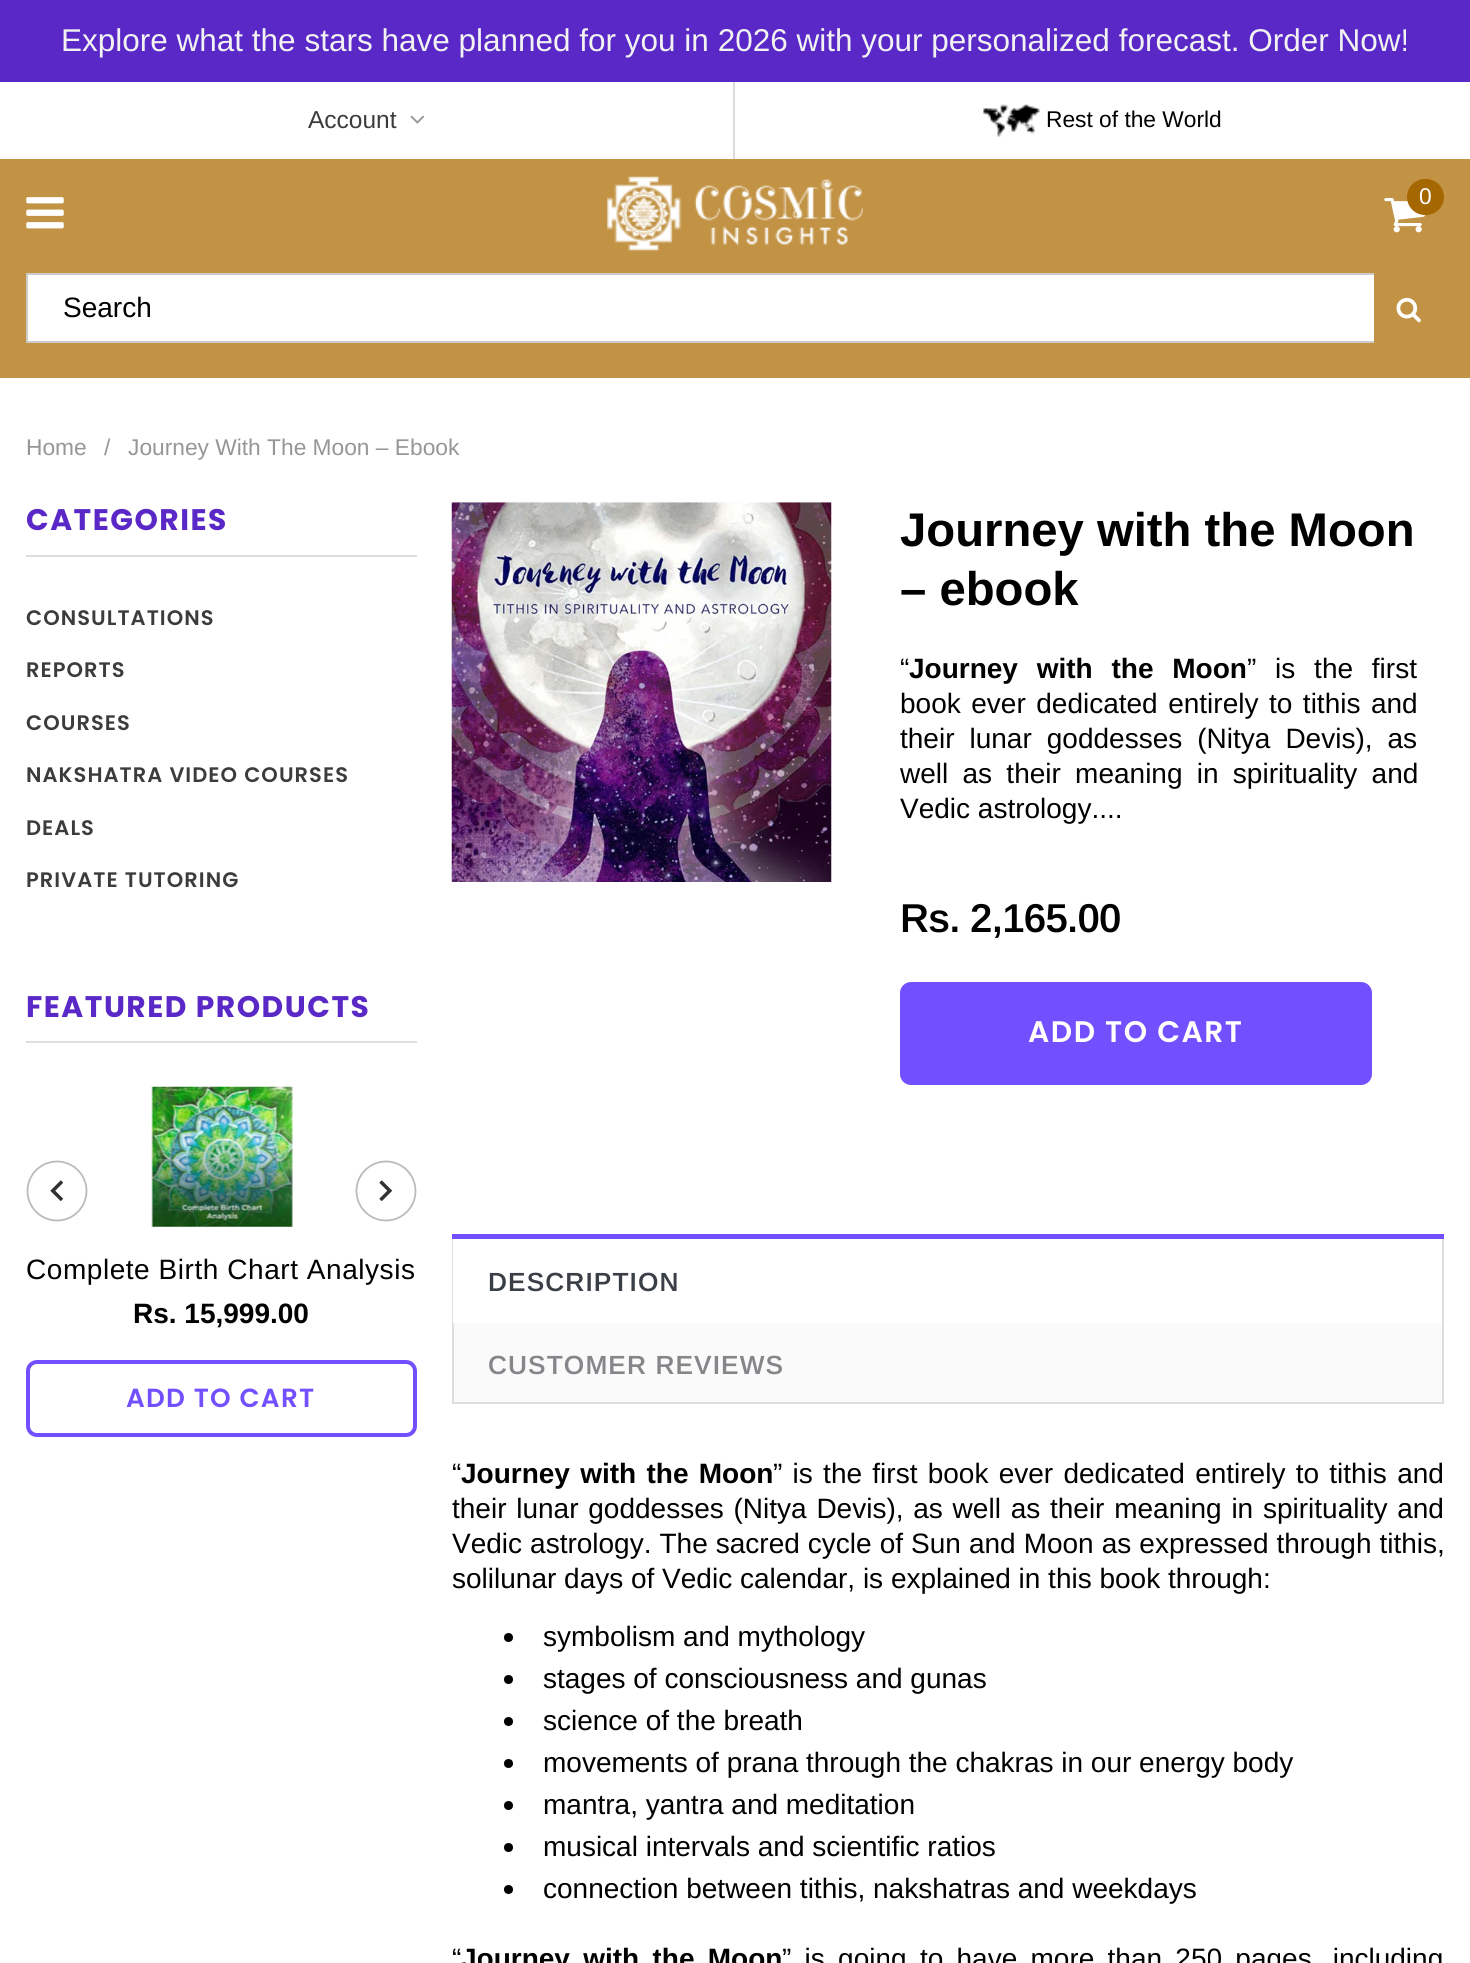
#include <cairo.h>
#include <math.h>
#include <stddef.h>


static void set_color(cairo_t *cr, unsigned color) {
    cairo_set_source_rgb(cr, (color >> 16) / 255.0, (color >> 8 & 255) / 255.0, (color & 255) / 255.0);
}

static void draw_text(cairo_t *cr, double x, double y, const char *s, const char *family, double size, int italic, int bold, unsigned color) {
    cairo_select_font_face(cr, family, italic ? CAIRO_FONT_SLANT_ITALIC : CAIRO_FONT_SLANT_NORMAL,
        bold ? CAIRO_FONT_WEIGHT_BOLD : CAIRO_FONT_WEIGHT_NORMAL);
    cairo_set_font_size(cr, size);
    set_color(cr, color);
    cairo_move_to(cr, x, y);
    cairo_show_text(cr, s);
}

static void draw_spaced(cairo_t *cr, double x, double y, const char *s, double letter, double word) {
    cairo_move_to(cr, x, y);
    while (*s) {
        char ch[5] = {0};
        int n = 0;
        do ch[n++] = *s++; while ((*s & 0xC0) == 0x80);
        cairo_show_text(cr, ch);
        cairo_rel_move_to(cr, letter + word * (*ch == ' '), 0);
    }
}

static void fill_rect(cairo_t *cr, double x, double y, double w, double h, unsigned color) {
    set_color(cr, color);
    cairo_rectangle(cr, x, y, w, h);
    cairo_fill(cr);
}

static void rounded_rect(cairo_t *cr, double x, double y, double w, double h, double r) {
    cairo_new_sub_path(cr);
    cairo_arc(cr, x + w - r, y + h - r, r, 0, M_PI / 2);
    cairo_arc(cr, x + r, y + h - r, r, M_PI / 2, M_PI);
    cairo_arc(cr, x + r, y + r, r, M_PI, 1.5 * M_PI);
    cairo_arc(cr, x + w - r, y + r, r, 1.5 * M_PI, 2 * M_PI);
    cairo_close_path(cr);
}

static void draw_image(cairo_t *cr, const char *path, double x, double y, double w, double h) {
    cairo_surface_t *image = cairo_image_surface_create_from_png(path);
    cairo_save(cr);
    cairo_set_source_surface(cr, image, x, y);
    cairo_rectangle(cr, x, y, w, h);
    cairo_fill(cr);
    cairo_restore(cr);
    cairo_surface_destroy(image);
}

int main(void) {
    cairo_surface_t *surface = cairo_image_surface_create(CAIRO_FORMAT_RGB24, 1470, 1963);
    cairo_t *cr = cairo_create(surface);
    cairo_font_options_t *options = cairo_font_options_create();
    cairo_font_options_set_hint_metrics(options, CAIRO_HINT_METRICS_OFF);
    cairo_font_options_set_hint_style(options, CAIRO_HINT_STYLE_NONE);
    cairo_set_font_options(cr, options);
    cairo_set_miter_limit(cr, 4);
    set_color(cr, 0xFFFFFF);
    cairo_paint(cr);
    fill_rect(cr, 733, 81, 2, 78, 0xDBDBDB);
    fill_rect(cr, 0, 0, 1470, 82, 0x5928C6);
    draw_text(cr, 61, 51, "Explore what the stars have planned for you in 2026 with your personalized forecast. Order Now!", "Liberation Sans", 31.5, 0, 0, 0xF2F2F2);
    draw_text(cr, 308, 128, "Account", "Arimo", 24.5, 0, 0, 0x3C3C3C);
    draw_image(cr, "assets/img1.png", 410, 115, 15, 9);
    draw_image(cr, "assets/img2.png", 983, 104, 57, 33);
    draw_text(cr, 1046, 127, "Rest of the World", "Arimo", 22.75, 0, 0, 0x000000);
    fill_rect(cr, 0, 159, 1470, 219, 0xC29345);
    draw_image(cr, "assets/img3.png", 26, 197, 38, 32);
    draw_image(cr, "assets/img4.png", 607, 176, 256, 75);
    draw_image(cr, "assets/img5.png", 1384, 198, 41, 35);
    set_color(cr, 0xA56700);
    rounded_rect(cr, 1407, 179, 37, 36, 18);
    cairo_fill(cr);
    draw_text(cr, 1419, 204, "0", "Arimo", 22.75, 0, 0, 0xFFFFFF);
    fill_rect(cr, 28, 275, 1346, 66, 0xFFFFFF);
    cairo_rectangle(cr, 27, 274, 1416, 68);
    set_color(cr, 0xCBCBCB);
    cairo_stroke(cr);
    draw_text(cr, 63, 317, "Search", "Arimo", 28, 0, 0, 0x000000);
    fill_rect(cr, 1374, 273, 70, 70, 0xC29345);
    draw_image(cr, "assets/img6.png", 1396, 297, 25, 26);
    draw_text(cr, 26, 455, "Home", "Arimo", 22.75, 0, 0, 0x969696);
    draw_text(cr, 104, 455, "/", "Arimo", 22.75, 0, 0, 0x969696);
    draw_text(cr, 128, 455, "Journey With The Moon – Ebook", "Arimo", 22.75, 0, 0, 0x969696);
    fill_rect(cr, 26, 555, 391, 2, 0xDEDEDE);
    cairo_select_font_face(cr, "Poppins", CAIRO_FONT_SLANT_NORMAL, CAIRO_FONT_WEIGHT_BOLD);
    cairo_set_font_size(cr, 29.75);
    set_color(cr, 0x5928C6);
    draw_spaced(cr, 26, 530, "CATEGORIES", 1.5, 0);
    cairo_select_font_face(cr, "Poppins SemiBold", CAIRO_FONT_SLANT_NORMAL, CAIRO_FONT_WEIGHT_NORMAL);
    cairo_set_font_size(cr, 21);
    set_color(cr, 0x3C3C3C);
    draw_spaced(cr, 26, 625, "CONSULTATIONS", 1.05, 0);
    draw_spaced(cr, 26, 677, "REPORTS", 1.05, 0);
    draw_spaced(cr, 26, 730, "COURSES", 1.05, 0);
    draw_spaced(cr, 26, 782, "NAKSHATRA VIDEO COURSES", 1.05, 0);
    draw_spaced(cr, 26, 835, "DEALS", 1.05, 0);
    draw_spaced(cr, 26, 887, "PRIVATE TUTORING", 1.05, 0);
    fill_rect(cr, 26, 1041, 391, 2, 0xDEDEDE);
    cairo_select_font_face(cr, "Poppins", CAIRO_FONT_SLANT_NORMAL, CAIRO_FONT_WEIGHT_BOLD);
    cairo_set_font_size(cr, 29.75);
    set_color(cr, 0x5928C6);
    draw_spaced(cr, 26, 1017, "FEATURED PRODUCTS", 1.5, 0);
    cairo_new_path(cr);
    cairo_arc(cr, 57, 1191, 29.5, 0, 2 * M_PI);
    set_color(cr, 0xBBBBBB);
    cairo_set_line_width(cr, 1.8);
    cairo_stroke(cr);
    cairo_new_path(cr);
    cairo_move_to(cr, 51.5, 1192);
    cairo_line_to(cr, 62, 1181.5);
    cairo_move_to(cr, 62, 1200);
    cairo_line_to(cr, 51.5, 1189.5);
    set_color(cr, 0x323232);
    cairo_set_line_width(cr, 3.5);
    cairo_stroke(cr);
    cairo_arc(cr, 386, 1191, 29.5, 0, 2 * M_PI);
    set_color(cr, 0xBBBBBB);
    cairo_set_line_width(cr, 1.8);
    cairo_stroke(cr);
    cairo_new_path(cr);
    cairo_move_to(cr, 380.5, 1181.5);
    cairo_line_to(cr, 391, 1192);
    cairo_move_to(cr, 391, 1189.5);
    cairo_line_to(cr, 380.5, 1200);
    set_color(cr, 0x323232);
    cairo_set_line_width(cr, 3.5);
    cairo_stroke(cr);
    draw_image(cr, "assets/img7.png", 151, 1086, 142, 141);
    cairo_select_font_face(cr, "Arimo", CAIRO_FONT_SLANT_NORMAL, CAIRO_FONT_WEIGHT_NORMAL);
    cairo_set_font_size(cr, 28);
    set_color(cr, 0x000000);
    draw_spaced(cr, 26, 1279, "Complete Birth Chart Analysis", 0.55, 0);
    draw_text(cr, 133, 1323, "Rs. 15,999.00", "Arimo", 28, 0, 1, 0x000000);
    rounded_rect(cr, 28, 1362, 387, 73, 9);
    set_color(cr, 0x724FFF);
    cairo_set_line_width(cr, 4);
    cairo_stroke(cr);
    cairo_select_font_face(cr, "Poppins SemiBold", CAIRO_FONT_SLANT_NORMAL, CAIRO_FONT_WEIGHT_NORMAL);
    cairo_set_font_size(cr, 26.25);
    draw_spaced(cr, 126, 1407, "ADD TO CART", 1.25, 0);
    draw_image(cr, "assets/img8.png", 451, 502, 381, 380);
    draw_text(cr, 900, 546, "Journey with the Moon", "Arimo", 47.25, 0, 1, 0x000000);
    draw_text(cr, 900, 605, "– ebook", "Arimo", 47.25, 0, 1, 0x000000);
    draw_text(cr, 900, 678, "“", "Arimo", 28, 0, 0, 0x000000);
    cairo_select_font_face(cr, "Arimo", CAIRO_FONT_SLANT_NORMAL, CAIRO_FONT_WEIGHT_BOLD);
    draw_spaced(cr, 909, 678, "Journey with the Moon", 0, 11);
    cairo_select_font_face(cr, "Arimo", CAIRO_FONT_SLANT_NORMAL, CAIRO_FONT_WEIGHT_NORMAL);
    draw_spaced(cr, 1247, 678, "” is the first", 0, 11);
    draw_spaced(cr, 900, 713, "book ever dedicated entirely to tithis and", 0, 2.75);
    draw_spaced(cr, 900, 748, "their lunar goddesses (Nitya Devis), as", 0, 7.25);
    draw_spaced(cr, 900, 783, "well as their meaning in spirituality and", 0, 6.5);
    draw_text(cr, 900, 818, "Vedic astrology....", "Arimo", 28, 0, 0, 0x000000);
    cairo_select_font_face(cr, "Arimo SemiBold", CAIRO_FONT_SLANT_NORMAL, CAIRO_FONT_WEIGHT_NORMAL);
    cairo_set_font_size(cr, 40.25);
    draw_spaced(cr, 900, 932, "Rs. 2,165.00", -0.75, 0);
    set_color(cr, 0x724FFF);
    rounded_rect(cr, 902, 984, 468, 99, 9);
    cairo_fill_preserve(cr);
    cairo_stroke(cr);
    cairo_select_font_face(cr, "Poppins SemiBold", CAIRO_FONT_SLANT_NORMAL, CAIRO_FONT_WEIGHT_NORMAL);
    cairo_set_font_size(cr, 29.75);
    set_color(cr, 0xFFFFFF);
    draw_spaced(cr, 1028, 1042, "ADD TO CART", 1.5, 0);
    fill_rect(cr, 454, 1323, 988, 79, 0xFAFAFA);
    cairo_rectangle(cr, 453, 1240, 990, 163);
    set_color(cr, 0xDEDEDE);
    cairo_set_line_width(cr, 2);
    cairo_stroke(cr);
    fill_rect(cr, 453, 1241, 1, 82, 0xFFFFFF);
    fill_rect(cr, 452, 1234, 992, 5, 0x724FFF);
    fill_rect(cr, 453, 1239, 989, 2, 0xFFFFFF);
    cairo_select_font_face(cr, "Arimo SemiBold", CAIRO_FONT_SLANT_NORMAL, CAIRO_FONT_WEIGHT_NORMAL);
    cairo_set_font_size(cr, 26.25);
    set_color(cr, 0x3A3E46);
    draw_spaced(cr, 488, 1291, "DESCRIPTION", 1.1, 0);
    set_color(cr, 0x848689);
    draw_spaced(cr, 488, 1374, "CUSTOMER REVIEWS", 1.1, 0);
    draw_text(cr, 452, 1483, "“", "Arimo", 28, 0, 0, 0x000000);
    cairo_select_font_face(cr, "Arimo", CAIRO_FONT_SLANT_NORMAL, CAIRO_FONT_WEIGHT_BOLD);
    draw_spaced(cr, 461, 1483, "Journey with the Moon", 0, 2.5);
    cairo_select_font_face(cr, "Arimo", CAIRO_FONT_SLANT_NORMAL, CAIRO_FONT_WEIGHT_NORMAL);
    draw_spaced(cr, 773, 1483, "” is the first book ever dedicated entirely to tithis and", 0, 2.5);
    draw_spaced(cr, 452, 1518, "their lunar goddesses (Nitya Devis), as well as their meaning in spirituality and", 0, 2);
    draw_spaced(cr, 452, 1553, "Vedic astrology. The sacred cycle of Sun and Moon as expressed through tithis,", 0, 0.25);
    draw_text(cr, 452, 1588, "solilunar days of Vedic calendar, is explained in this book through:", "Arimo", 28, 0, 0, 0x000000);
    cairo_new_path(cr);
    cairo_arc(cr, 508.5, 1637.5, 4.5, 0, 2 * M_PI);
    cairo_fill(cr);
    draw_text(cr, 543, 1646, "symbolism and mythology", "Arimo", 28, 0, 0, 0x000000);
    cairo_new_path(cr);
    cairo_arc(cr, 508.5, 1679.5, 4.5, 0, 2 * M_PI);
    cairo_fill(cr);
    draw_text(cr, 543, 1688, "stages of consciousness and gunas", "Arimo", 28, 0, 0, 0x000000);
    cairo_new_path(cr);
    cairo_arc(cr, 508.5, 1721.5, 4.5, 0, 2 * M_PI);
    cairo_fill(cr);
    draw_text(cr, 543, 1730, "science of the breath", "Arimo", 28, 0, 0, 0x000000);
    cairo_new_path(cr);
    cairo_arc(cr, 508.5, 1763.5, 4.5, 0, 2 * M_PI);
    cairo_fill(cr);
    draw_text(cr, 543, 1772, "movements of prana through the chakras in our energy body", "Arimo", 28, 0, 0, 0x000000);
    cairo_new_path(cr);
    cairo_arc(cr, 508.5, 1805.5, 4.5, 0, 2 * M_PI);
    cairo_fill(cr);
    draw_text(cr, 543, 1814, "mantra, yantra and meditation", "Arimo", 28, 0, 0, 0x000000);
    cairo_new_path(cr);
    cairo_arc(cr, 508.5, 1847.5, 4.5, 0, 2 * M_PI);
    cairo_fill(cr);
    draw_text(cr, 543, 1856, "musical intervals and scientific ratios", "Arimo", 28, 0, 0, 0x000000);
    cairo_new_path(cr);
    cairo_arc(cr, 508.5, 1889.5, 4.5, 0, 2 * M_PI);
    cairo_fill(cr);
    draw_text(cr, 543, 1898, "connection between tithis, nakshatras and weekdays", "Arimo", 28, 0, 0, 0x000000);
    draw_text(cr, 452, 1968, "“", "Arimo", 28, 0, 0, 0x000000);
    cairo_select_font_face(cr, "Arimo", CAIRO_FONT_SLANT_NORMAL, CAIRO_FONT_WEIGHT_BOLD);
    draw_spaced(cr, 461, 1968, "Journey with the Moon", 0, 5.5);
    cairo_select_font_face(cr, "Arimo", CAIRO_FONT_SLANT_NORMAL, CAIRO_FONT_WEIGHT_NORMAL);
    draw_spaced(cr, 782, 1968, "” is going to have more than 250 pages, including", 0, 5.5);
    cairo_surface_write_to_png(surface, "output.png");
    cairo_font_options_destroy(options);
    cairo_destroy(cr);
    cairo_surface_destroy(surface);
    return 0;
}
